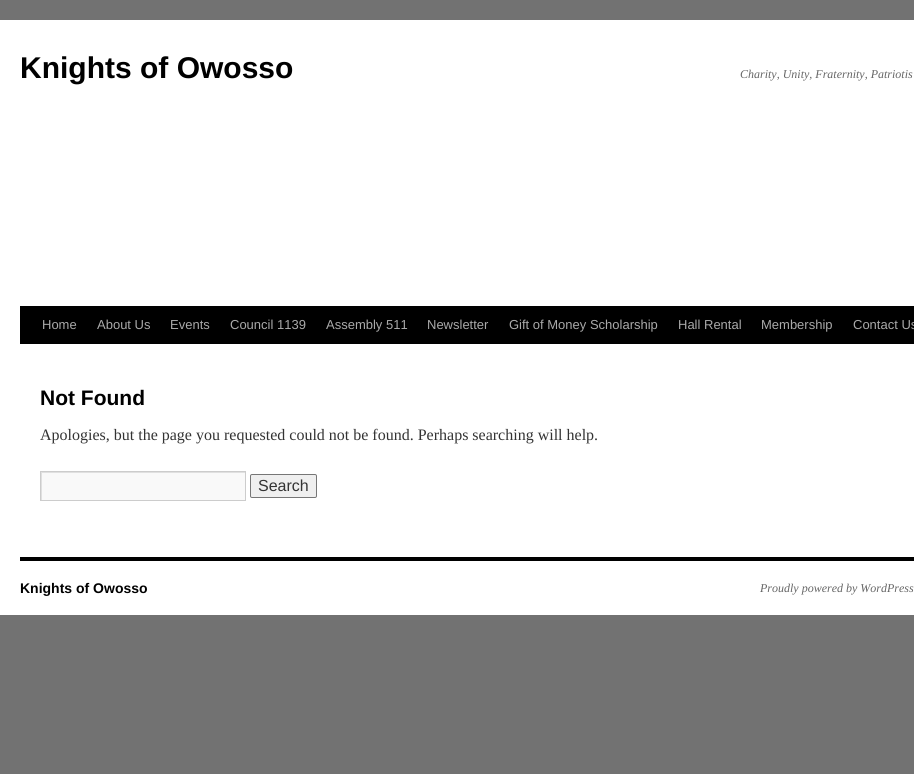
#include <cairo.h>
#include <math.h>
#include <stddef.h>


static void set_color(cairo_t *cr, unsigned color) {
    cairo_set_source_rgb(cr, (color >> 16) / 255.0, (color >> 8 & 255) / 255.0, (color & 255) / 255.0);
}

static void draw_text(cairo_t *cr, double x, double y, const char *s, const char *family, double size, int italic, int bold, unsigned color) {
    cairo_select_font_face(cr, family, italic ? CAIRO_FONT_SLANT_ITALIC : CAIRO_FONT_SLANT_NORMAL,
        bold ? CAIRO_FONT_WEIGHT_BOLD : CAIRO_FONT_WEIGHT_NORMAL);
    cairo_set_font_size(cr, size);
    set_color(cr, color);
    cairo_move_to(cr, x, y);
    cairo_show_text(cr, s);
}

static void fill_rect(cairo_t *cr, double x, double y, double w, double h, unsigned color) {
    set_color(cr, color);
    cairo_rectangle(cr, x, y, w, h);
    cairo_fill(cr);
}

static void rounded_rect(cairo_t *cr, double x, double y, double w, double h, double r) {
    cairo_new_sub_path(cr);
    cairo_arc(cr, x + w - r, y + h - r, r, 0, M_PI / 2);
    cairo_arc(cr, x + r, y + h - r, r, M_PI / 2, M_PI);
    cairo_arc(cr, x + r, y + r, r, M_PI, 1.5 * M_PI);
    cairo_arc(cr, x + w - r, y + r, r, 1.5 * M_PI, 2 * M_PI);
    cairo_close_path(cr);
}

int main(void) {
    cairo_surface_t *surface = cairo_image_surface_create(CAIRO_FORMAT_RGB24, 914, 774);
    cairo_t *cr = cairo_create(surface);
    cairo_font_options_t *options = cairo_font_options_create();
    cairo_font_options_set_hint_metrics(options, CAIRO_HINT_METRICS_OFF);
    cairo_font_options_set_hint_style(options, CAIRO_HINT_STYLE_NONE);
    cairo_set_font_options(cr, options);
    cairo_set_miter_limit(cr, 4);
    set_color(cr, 0x727272);
    cairo_paint(cr);
    fill_rect(cr, 0, 20, 914, 595, 0xFFFFFF);
    draw_text(cr, 20, 78, "Knights of Owosso", "Liberation Sans", 30, 0, 1, 0x000000);
    draw_text(cr, 740, 78, "Charity, Unity, Fraternity, Patriotis", "Liberation Serif", 12, 1, 0, 0x666666);
    fill_rect(cr, 20, 306, 894, 38, 0x000000);
    draw_text(cr, 42, 329, "Home", "Liberation Sans", 13, 0, 0, 0xAAAAAA);
    draw_text(cr, 97, 329, "About Us", "Liberation Sans", 13, 0, 0, 0xAAAAAA);
    draw_text(cr, 170, 329, "Events", "Liberation Sans", 13, 0, 0, 0xAAAAAA);
    draw_text(cr, 230, 329, "Council 1139", "Liberation Sans", 13, 0, 0, 0xAAAAAA);
    draw_text(cr, 326, 329, "Assembly 511", "Liberation Sans", 13, 0, 0, 0xAAAAAA);
    draw_text(cr, 427, 329, "Newsletter", "Liberation Sans", 13, 0, 0, 0xAAAAAA);
    draw_text(cr, 509, 329, "Gift of Money Scholarship", "Liberation Sans", 13, 0, 0, 0xAAAAAA);
    draw_text(cr, 678, 329, "Hall Rental", "Liberation Sans", 13, 0, 0, 0xAAAAAA);
    draw_text(cr, 761, 329, "Membership", "Liberation Sans", 13, 0, 0, 0xAAAAAA);
    draw_text(cr, 853, 329, "Contact Us", "Liberation Sans", 13, 0, 0, 0xAAAAAA);
    draw_text(cr, 40, 405, "Not Found", "Liberation Sans", 21, 0, 1, 0x000000);
    draw_text(cr, 40, 440, "Apologies, but the page you requested could not be found. Perhaps searching will help.", "Liberation Serif", 16, 0, 0, 0x333333);
    fill_rect(cr, 42, 473, 203, 27, 0xF9F9F9);
    cairo_save(cr);
    cairo_rectangle(cr, 41, 472, 204, 28);
    cairo_clip(cr);
    set_color(cr, 0xE0E0E0);
    cairo_set_fill_rule(cr, CAIRO_FILL_RULE_EVEN_ODD);
    cairo_new_path(cr);
    cairo_move_to(cr, -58, 373);
    cairo_line_to(cr, 344, 373);
    cairo_line_to(cr, 344, 599);
    cairo_line_to(cr, -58, 599);
    cairo_close_path(cr);
    cairo_move_to(cr, 42, 473);
    cairo_line_to(cr, 246, 473);
    cairo_line_to(cr, 246, 501);
    cairo_line_to(cr, 42, 501);
    cairo_close_path(cr);
    cairo_fill(cr);
    cairo_restore(cr);
    cairo_rectangle(cr, 40.5, 471.5, 205, 29);
    set_color(cr, 0xCCCCCC);
    cairo_set_line_width(cr, 1);
    cairo_stroke(cr);
    set_color(cr, 0xEFEFEF);
    rounded_rect(cr, 250.5, 474.5, 66, 23, 1.5);
    cairo_fill_preserve(cr);
    set_color(cr, 0x767676);
    cairo_stroke(cr);
    draw_text(cr, 258, 491, "Search", "Liberation Sans", 16, 0, 0, 0x333333);
    fill_rect(cr, 20, 557, 894, 4, 0x000000);
    draw_text(cr, 20, 593, "Knights of Owosso", "Liberation Sans", 14, 0, 1, 0x000000);
    draw_text(cr, 760, 592, "Proudly powered by WordPress", "Liberation Serif", 12, 1, 0, 0x666666);
    cairo_surface_write_to_png(surface, "output.png");
    cairo_font_options_destroy(options);
    cairo_destroy(cr);
    cairo_surface_destroy(surface);
    return 0;
}
